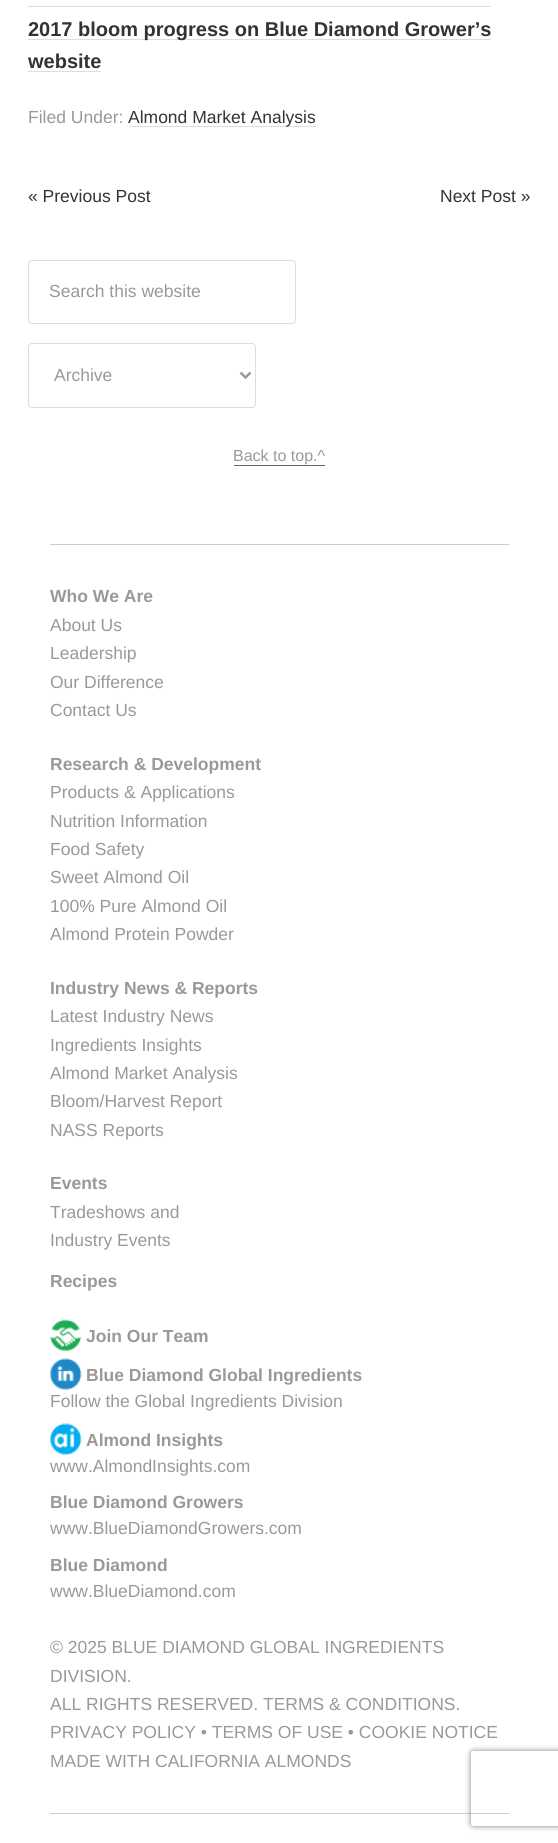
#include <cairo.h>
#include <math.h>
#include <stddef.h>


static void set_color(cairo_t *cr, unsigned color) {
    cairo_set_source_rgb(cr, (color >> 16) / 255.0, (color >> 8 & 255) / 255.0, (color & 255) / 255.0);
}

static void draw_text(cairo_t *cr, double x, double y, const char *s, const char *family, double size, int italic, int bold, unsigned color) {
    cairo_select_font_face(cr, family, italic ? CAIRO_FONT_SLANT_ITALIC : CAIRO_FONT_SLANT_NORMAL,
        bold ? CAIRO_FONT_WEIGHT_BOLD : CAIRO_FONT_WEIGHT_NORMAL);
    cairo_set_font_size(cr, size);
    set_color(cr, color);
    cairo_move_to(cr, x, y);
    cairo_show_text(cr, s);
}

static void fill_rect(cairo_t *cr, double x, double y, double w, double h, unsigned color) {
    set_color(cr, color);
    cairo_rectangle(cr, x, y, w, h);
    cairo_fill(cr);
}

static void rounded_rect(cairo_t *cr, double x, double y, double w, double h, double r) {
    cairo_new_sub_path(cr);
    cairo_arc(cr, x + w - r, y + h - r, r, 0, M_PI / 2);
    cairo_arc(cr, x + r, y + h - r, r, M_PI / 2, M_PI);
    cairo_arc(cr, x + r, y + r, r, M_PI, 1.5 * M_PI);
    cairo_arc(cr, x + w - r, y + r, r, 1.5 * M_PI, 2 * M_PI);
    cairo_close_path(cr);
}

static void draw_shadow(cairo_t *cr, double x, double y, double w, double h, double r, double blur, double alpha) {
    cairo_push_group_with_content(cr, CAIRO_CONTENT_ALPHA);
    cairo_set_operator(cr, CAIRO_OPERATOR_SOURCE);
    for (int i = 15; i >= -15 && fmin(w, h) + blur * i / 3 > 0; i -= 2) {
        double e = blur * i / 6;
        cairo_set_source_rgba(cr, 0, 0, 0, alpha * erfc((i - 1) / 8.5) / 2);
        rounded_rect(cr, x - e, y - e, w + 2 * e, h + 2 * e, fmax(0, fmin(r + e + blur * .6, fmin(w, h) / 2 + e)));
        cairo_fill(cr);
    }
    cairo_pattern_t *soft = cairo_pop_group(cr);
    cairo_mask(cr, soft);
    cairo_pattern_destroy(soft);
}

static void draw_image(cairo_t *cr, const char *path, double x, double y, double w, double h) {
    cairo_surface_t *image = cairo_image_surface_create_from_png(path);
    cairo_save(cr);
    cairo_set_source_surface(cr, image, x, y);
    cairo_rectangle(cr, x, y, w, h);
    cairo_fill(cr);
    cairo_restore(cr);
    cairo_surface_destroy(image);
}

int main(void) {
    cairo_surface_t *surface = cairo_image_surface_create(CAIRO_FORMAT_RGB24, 558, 1843);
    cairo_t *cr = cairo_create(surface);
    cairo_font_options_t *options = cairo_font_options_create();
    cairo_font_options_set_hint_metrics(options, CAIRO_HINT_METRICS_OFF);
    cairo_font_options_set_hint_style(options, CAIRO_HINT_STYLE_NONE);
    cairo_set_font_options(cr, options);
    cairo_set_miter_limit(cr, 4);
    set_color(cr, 0xFFFFFF);
    cairo_paint(cr);
    fill_rect(cr, 28, 39, 463, 1, 0xDDDDDD);
    draw_text(cr, 28, 36, "2017 bloom progress on Blue Diamond Grower’s", "Liberation Sans", 20, 0, 1, 0x333333);
    fill_rect(cr, 28, 6, 463, 1, 0xDDDDDD);
    draw_text(cr, 28, 68, "website", "Liberation Sans", 20, 0, 1, 0x333333);
    fill_rect(cr, 28, 71, 73, 1, 0xDDDDDD);
    draw_text(cr, 28, 123, "Filed Under:", "Liberation Sans", 17.5, 0, 0, 0x999999);
    fill_rect(cr, 129, 126, 187, 1, 0xDDDDDD);
    draw_text(cr, 128, 123, "Almond Market Analysis", "Liberation Sans", 17.5, 0, 0, 0x333333);
    draw_text(cr, 28, 202, "« Previous Post", "Liberation Sans", 17.5, 0, 0, 0x333333);
    draw_text(cr, 440, 202, "Next Post »", "Liberation Sans", 17.5, 0, 0, 0x333333);
    rounded_rect(cr, 28.5, 260.5, 267, 63, 3.5);
    set_color(cr, 0xDDDDDD);
    cairo_set_line_width(cr, 1);
    cairo_stroke(cr);
    draw_text(cr, 49, 297, "Search this website", "Liberation Sans", 17.5, 0, 0, 0x999999);
    rounded_rect(cr, 28.5, 343.5, 227, 64, 3.5);
    set_color(cr, 0xDDDDDD);
    cairo_stroke(cr);
    cairo_new_path(cr);
    cairo_move_to(cr, 240.5, 372.5);
    cairo_line_to(cr, 245.5, 377.5);
    cairo_line_to(cr, 250.5, 372.5);
    set_color(cr, 0x999999);
    cairo_set_line_width(cr, 2.5);
    cairo_stroke(cr);
    draw_text(cr, 54, 381, "Archive", "Liberation Sans", 17.5, 0, 0, 0x999999);
    draw_text(cr, 233, 461, "Back to top.^", "Liberation Sans", 16, 0, 0, 0x999999);
    fill_rect(cr, 234, 465, 91, 1, 0x666666);
    fill_rect(cr, 50, 544, 459, 1, 0xCCCCCC);
    fill_rect(cr, 50, 1813, 459, 1, 0xCCCCCC);
    draw_text(cr, 50, 602, "Who We Are", "Liberation Sans", 17.5, 0, 1, 0x999999);
    draw_text(cr, 50, 631, "About Us", "Liberation Sans", 17.5, 0, 0, 0x999999);
    draw_text(cr, 50, 659, "Leadership", "Liberation Sans", 17.5, 0, 0, 0x999999);
    draw_text(cr, 50, 688, "Our Difference", "Liberation Sans", 17.5, 0, 0, 0x999999);
    draw_text(cr, 50, 716, "Contact Us", "Liberation Sans", 17.5, 0, 0, 0x999999);
    draw_text(cr, 50, 770, "Research & Development", "Liberation Sans", 17.5, 0, 1, 0x999999);
    draw_text(cr, 50, 798, "Products & Applications", "Liberation Sans", 17.5, 0, 0, 0x999999);
    draw_text(cr, 50, 827, "Nutrition Information", "Liberation Sans", 17.5, 0, 0, 0x999999);
    draw_text(cr, 50, 855, "Food Safety", "Liberation Sans", 17.5, 0, 0, 0x999999);
    draw_text(cr, 50, 883, "Sweet Almond Oil", "Liberation Sans", 17.5, 0, 0, 0x999999);
    draw_text(cr, 50, 912, "100% Pure Almond Oil", "Liberation Sans", 17.5, 0, 0, 0x999999);
    draw_text(cr, 50, 940, "Almond Protein Powder", "Liberation Sans", 17.5, 0, 0, 0x999999);
    draw_text(cr, 50, 994, "Industry News & Reports", "Liberation Sans", 17.5, 0, 1, 0x999999);
    draw_text(cr, 50, 1022, "Latest Industry News", "Liberation Sans", 17.5, 0, 0, 0x999999);
    draw_text(cr, 50, 1051, "Ingredients Insights", "Liberation Sans", 17.5, 0, 0, 0x999999);
    draw_text(cr, 50, 1079, "Almond Market Analysis", "Liberation Sans", 17.5, 0, 0, 0x999999);
    draw_text(cr, 50, 1107, "Bloom/Harvest Report", "Liberation Sans", 17.5, 0, 0, 0x999999);
    draw_text(cr, 50, 1136, "NASS Reports", "Liberation Sans", 17.5, 0, 0, 0x999999);
    draw_text(cr, 50, 1189, "Events", "Liberation Sans", 17.5, 0, 1, 0x999999);
    draw_text(cr, 50, 1218, "Tradeshows and", "Liberation Sans", 17.5, 0, 0, 0x999999);
    draw_text(cr, 50, 1246, "Industry Events", "Liberation Sans", 17.5, 0, 0, 0x999999);
    draw_text(cr, 50, 1287, "Recipes", "Liberation Sans", 17.5, 0, 1, 0x999999);
    draw_image(cr, "assets/img1.png", 50, 1319, 32, 32);
    draw_text(cr, 86, 1342, "Join Our Team", "Liberation Sans", 17.5, 0, 1, 0x999999);
    draw_image(cr, "assets/img2.png", 50, 1358, 32, 32);
    draw_text(cr, 86, 1381, "Blue Diamond Global Ingredients", "Liberation Sans", 17.5, 0, 1, 0x999999);
    draw_text(cr, 50, 1407, "Follow the Global Ingredients Division", "Liberation Sans", 17.5, 0, 0, 0x999999);
    draw_image(cr, "assets/img3.png", 50, 1423, 32, 32);
    draw_text(cr, 86, 1446, "Almond Insights", "Liberation Sans", 17.5, 0, 1, 0x999999);
    draw_text(cr, 50, 1472, "www.AlmondInsights.com", "Liberation Sans", 17.5, 0, 0, 0x999999);
    draw_text(cr, 50, 1508, "Blue Diamond Growers", "Liberation Sans", 17.5, 0, 1, 0x999999);
    draw_text(cr, 50, 1534, "www.BlueDiamondGrowers.com", "Liberation Sans", 17.5, 0, 0, 0x999999);
    draw_text(cr, 50, 1571, "Blue Diamond", "Liberation Sans", 17.5, 0, 1, 0x999999);
    draw_text(cr, 50, 1597, "www.BlueDiamond.com", "Liberation Sans", 17.5, 0, 0, 0x999999);
    draw_text(cr, 50, 1653, "© 2025 BLUE DIAMOND GLOBAL INGREDIENTS", "Liberation Sans", 17.5, 0, 0, 0x999999);
    draw_text(cr, 50, 1682, "DIVISION.", "Liberation Sans", 17.5, 0, 0, 0x999999);
    draw_text(cr, 50, 1710, "ALL RIGHTS RESERVED. TERMS & CONDITIONS.", "Liberation Sans", 17.5, 0, 0, 0x999999);
    draw_text(cr, 50, 1738, "PRIVACY POLICY • TERMS OF USE • COOKIE NOTICE", "Liberation Sans", 17.5, 0, 0, 0x999999);
    draw_text(cr, 50, 1767, "MADE WITH CALIFORNIA ALMONDS", "Liberation Sans", 17.5, 0, 0, 0x999999);
    cairo_save(cr);
    cairo_set_fill_rule(cr, CAIRO_FILL_RULE_EVEN_ODD);
    cairo_new_path(cr);
    cairo_move_to(cr, 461, 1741);
    cairo_line_to(cr, 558, 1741);
    cairo_line_to(cr, 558, 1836);
    cairo_line_to(cr, 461, 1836);
    cairo_close_path(cr);
    cairo_move_to(cr, 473.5, 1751);
    cairo_line_to(cr, 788.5, 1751);
    cairo_curve_to(cr, 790, 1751, 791, 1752, 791, 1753.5);
    cairo_line_to(cr, 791, 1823.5);
    cairo_curve_to(cr, 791, 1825, 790, 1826, 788.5, 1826);
    cairo_line_to(cr, 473.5, 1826);
    cairo_curve_to(cr, 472, 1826, 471, 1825, 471, 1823.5);
    cairo_line_to(cr, 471, 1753.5);
    cairo_curve_to(cr, 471, 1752, 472, 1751, 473.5, 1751);
    cairo_close_path(cr);
    cairo_clip(cr);
    set_color(cr, 0x808080);
    draw_shadow(cr, 471, 1751, 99, 75, 2.5, 3, 1);
    cairo_restore(cr);
    cairo_surface_write_to_png(surface, "output.png");
    cairo_font_options_destroy(options);
    cairo_destroy(cr);
    cairo_surface_destroy(surface);
    return 0;
}
